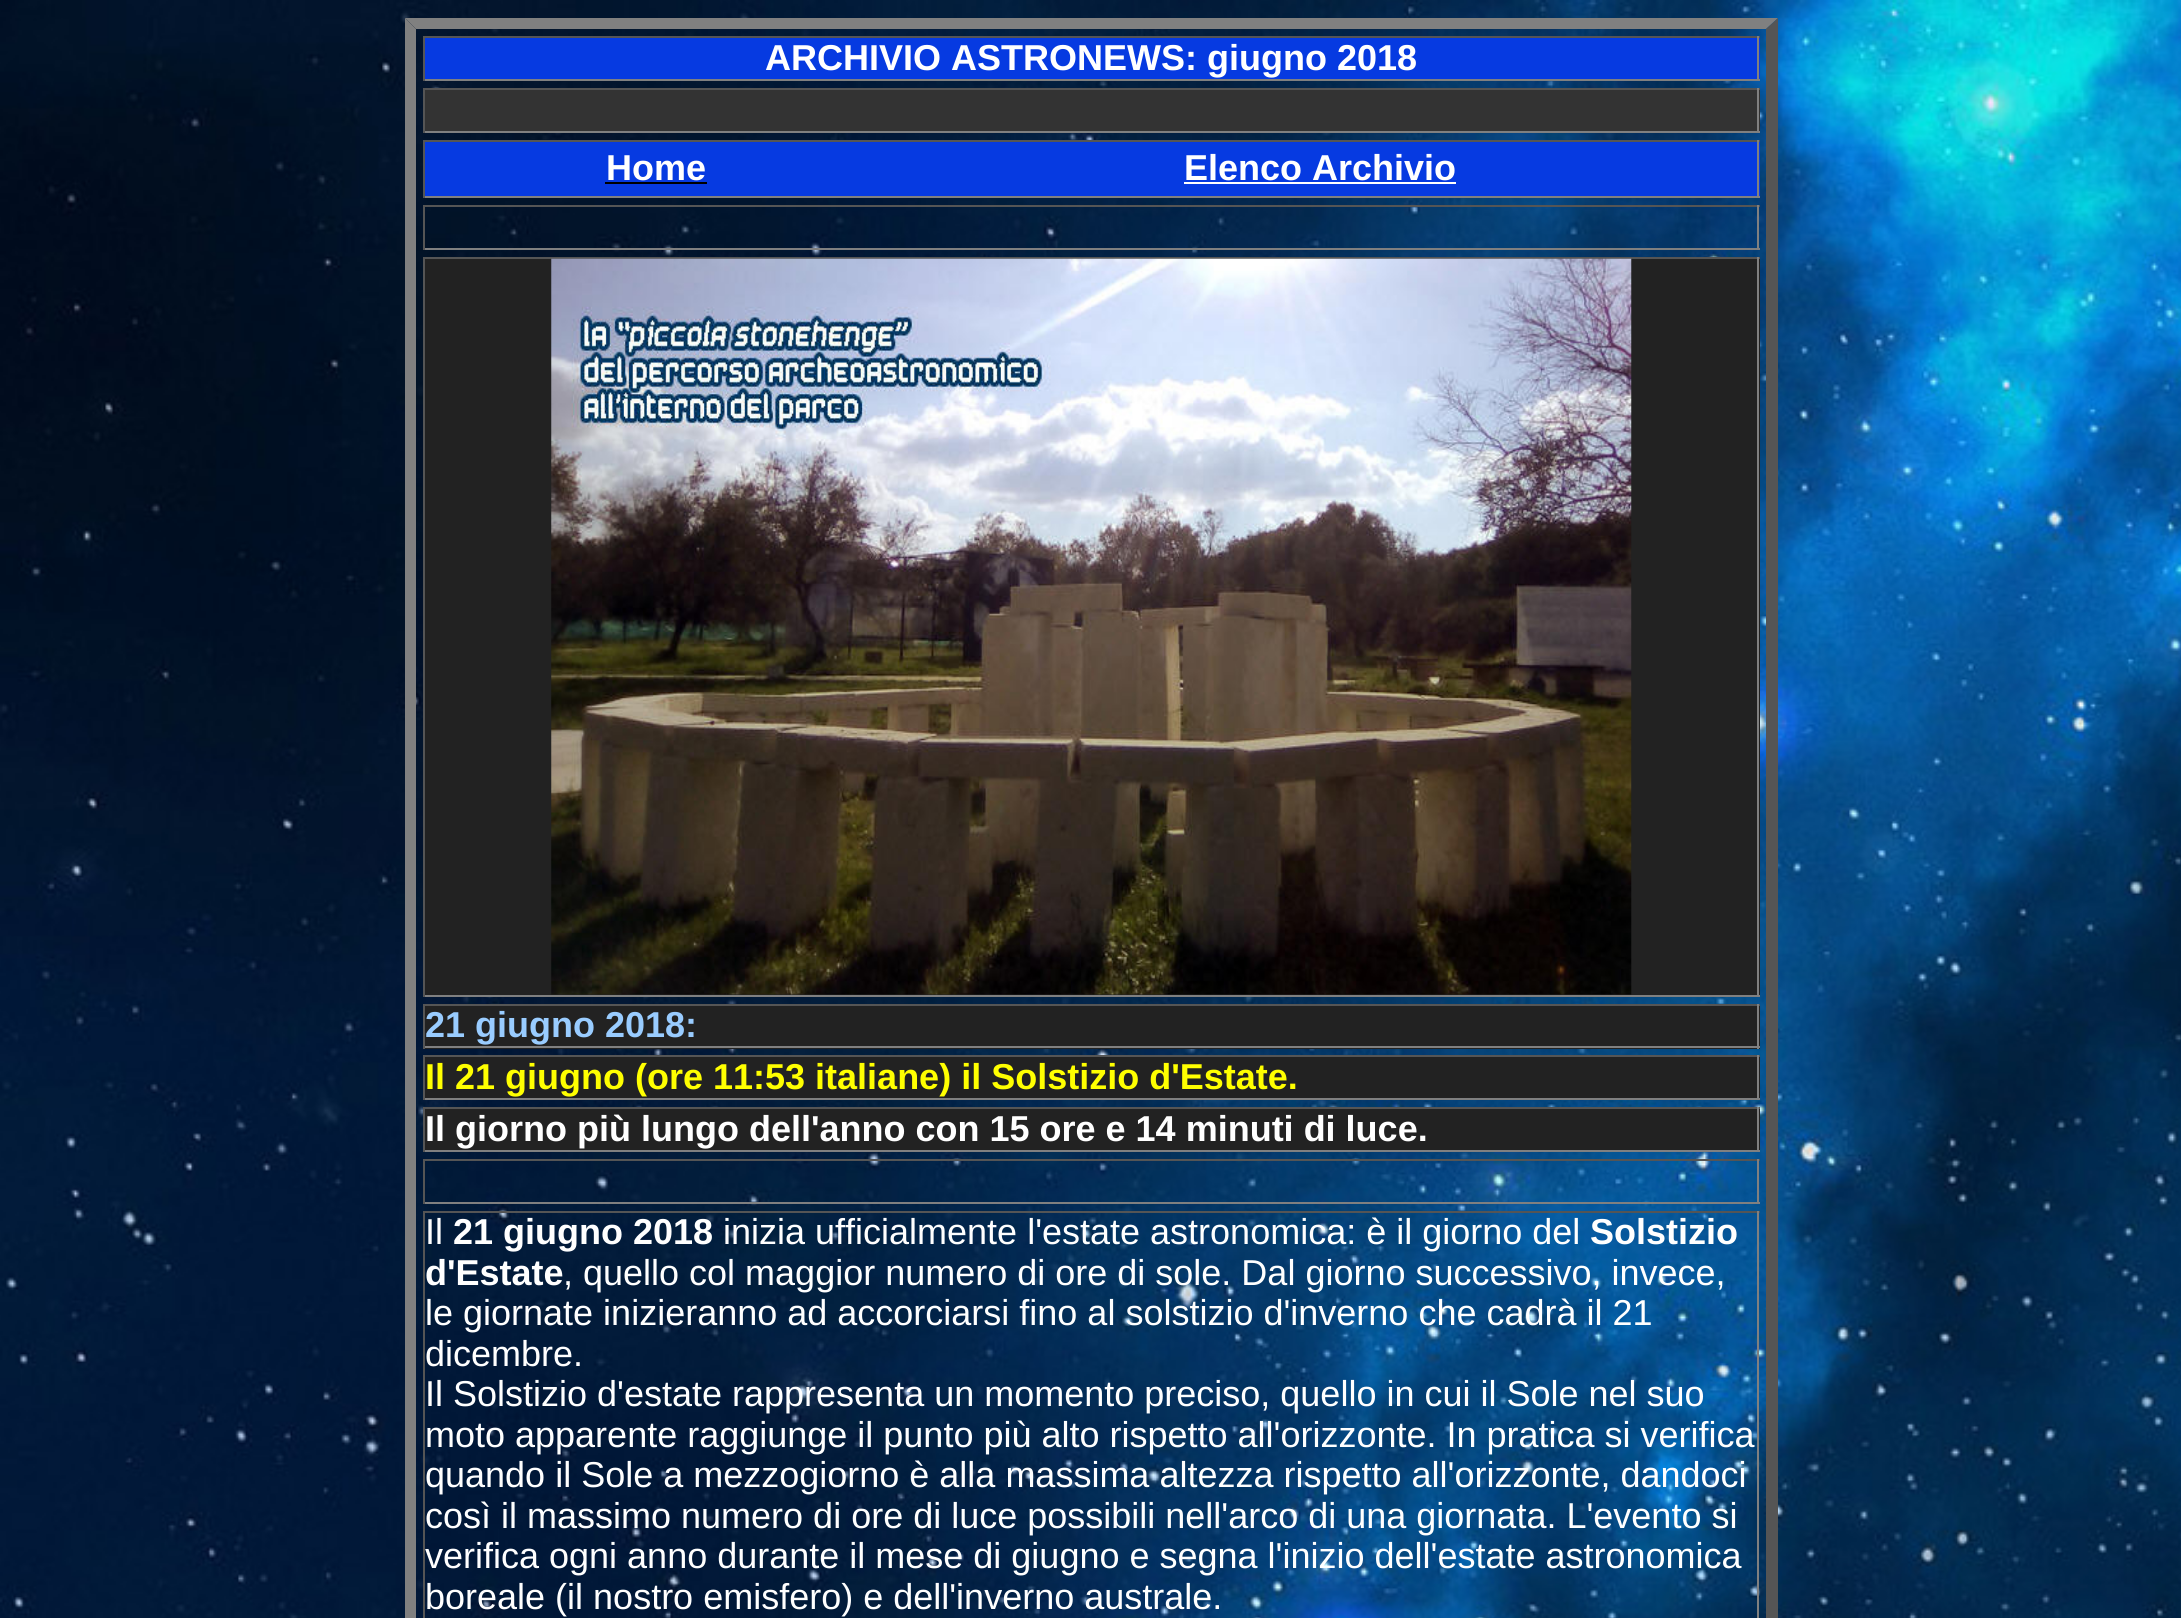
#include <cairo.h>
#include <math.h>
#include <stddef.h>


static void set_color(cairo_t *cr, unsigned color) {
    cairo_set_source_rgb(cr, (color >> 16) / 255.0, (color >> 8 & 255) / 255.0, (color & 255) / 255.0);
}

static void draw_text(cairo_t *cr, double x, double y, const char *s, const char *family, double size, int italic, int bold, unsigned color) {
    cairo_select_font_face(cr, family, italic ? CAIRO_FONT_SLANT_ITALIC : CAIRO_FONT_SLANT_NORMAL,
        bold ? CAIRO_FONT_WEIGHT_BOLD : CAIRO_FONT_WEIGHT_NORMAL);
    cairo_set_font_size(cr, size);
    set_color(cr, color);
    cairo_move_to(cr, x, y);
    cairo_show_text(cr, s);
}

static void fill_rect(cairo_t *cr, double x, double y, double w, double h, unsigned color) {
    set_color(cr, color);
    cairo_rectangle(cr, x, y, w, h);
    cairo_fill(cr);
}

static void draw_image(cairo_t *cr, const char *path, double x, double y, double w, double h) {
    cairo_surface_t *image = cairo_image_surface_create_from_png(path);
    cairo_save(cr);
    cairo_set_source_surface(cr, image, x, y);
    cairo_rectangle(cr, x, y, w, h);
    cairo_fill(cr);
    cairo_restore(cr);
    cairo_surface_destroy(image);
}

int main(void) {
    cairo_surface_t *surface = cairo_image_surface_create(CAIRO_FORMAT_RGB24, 2181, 1618);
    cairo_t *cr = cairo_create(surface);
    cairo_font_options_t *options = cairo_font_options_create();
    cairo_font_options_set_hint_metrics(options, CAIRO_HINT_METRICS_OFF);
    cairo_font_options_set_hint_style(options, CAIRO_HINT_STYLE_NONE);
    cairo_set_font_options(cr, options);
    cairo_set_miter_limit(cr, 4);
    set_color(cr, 0xFFFFFF);
    cairo_paint(cr);
    draw_image(cr, "assets/img1.png", 0, 0, 2181, 1618);
    set_color(cr, 0x808080);
    cairo_new_path(cr);
    cairo_move_to(cr, 405, 18);
    cairo_line_to(cr, 1778, 18);
    cairo_line_to(cr, 1766, 29);
    cairo_line_to(cr, 416, 29);
    cairo_close_path(cr);
    cairo_fill(cr);
    set_color(cr, 0x555555);
    cairo_new_path(cr);
    cairo_move_to(cr, 1778, 18);
    cairo_line_to(cr, 1778, 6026);
    cairo_line_to(cr, 1766, 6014);
    cairo_line_to(cr, 1766, 29);
    cairo_close_path(cr);
    cairo_fill(cr);
    set_color(cr, 0x808080);
    cairo_new_path(cr);
    cairo_move_to(cr, 405, 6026);
    cairo_line_to(cr, 405, 18);
    cairo_line_to(cr, 416, 29);
    cairo_line_to(cr, 416, 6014);
    cairo_close_path(cr);
    cairo_fill(cr);
    fill_rect(cr, 425, 38, 1335, 41, 0x063AE1);
    fill_rect(cr, 423, 36, 1337, 2, 0x555555);
    fill_rect(cr, 1757, 36, 2, 45, 0x808080);
    fill_rect(cr, 423, 79, 1337, 2, 0x808080);
    fill_rect(cr, 423, 36, 2, 45, 0x555555);
    draw_text(cr, 765, 70, "ARCHIVIO ASTRONEWS: giugno 2018", "Liberation Sans", 36, 0, 1, 0xFFFFFF);
    fill_rect(cr, 425, 90, 1335, 41, 0x333333);
    fill_rect(cr, 423, 88, 1337, 2, 0x555555);
    fill_rect(cr, 1757, 88, 2, 45, 0x808080);
    fill_rect(cr, 423, 131, 1337, 2, 0x808080);
    fill_rect(cr, 423, 88, 2, 45, 0x555555);
    fill_rect(cr, 425, 142, 1335, 54, 0x063AE1);
    fill_rect(cr, 423, 140, 1337, 2, 0x555555);
    fill_rect(cr, 1757, 140, 2, 58, 0x808080);
    fill_rect(cr, 423, 196, 1337, 2, 0x808080);
    fill_rect(cr, 423, 140, 2, 58, 0x555555);
    draw_text(cr, 606, 180, "Home", "Liberation Sans", 36, 0, 1, 0xFFFFFF);
    fill_rect(cr, 605, 182, 102, 2, 0x000000);
    draw_text(cr, 1184, 180, "Elenco Archivio", "Liberation Sans", 36, 0, 1, 0xFFFFFF);
    fill_rect(cr, 1184, 182, 272, 2, 0xFFFFFF);
    fill_rect(cr, 423, 205, 1337, 2, 0x555555);
    fill_rect(cr, 1757, 205, 2, 45, 0x808080);
    fill_rect(cr, 423, 248, 1337, 2, 0x808080);
    fill_rect(cr, 423, 205, 2, 45, 0x555555);
    fill_rect(cr, 425, 259, 1335, 736, 0x222222);
    fill_rect(cr, 423, 257, 1337, 2, 0x555555);
    fill_rect(cr, 1757, 257, 2, 740, 0x808080);
    fill_rect(cr, 423, 995, 1337, 2, 0x808080);
    fill_rect(cr, 423, 257, 2, 740, 0x555555);
    draw_image(cr, "assets/img2.png", 551, 258, 1081, 737);
    fill_rect(cr, 425, 1006, 1335, 43, 0x222222);
    fill_rect(cr, 423, 1004, 1337, 2, 0x555555);
    fill_rect(cr, 1757, 1004, 2, 45, 0x808080);
    fill_rect(cr, 423, 1046, 1337, 2, 0x808080);
    fill_rect(cr, 423, 1004, 2, 45, 0x555555);
    draw_text(cr, 425, 1037, "21 giugno 2018:", "Liberation Sans", 36, 0, 1, 0x99CCFF);
    fill_rect(cr, 425, 1057, 1335, 41, 0x222222);
    fill_rect(cr, 423, 1055, 1337, 2, 0x555555);
    fill_rect(cr, 1757, 1055, 2, 45, 0x808080);
    fill_rect(cr, 423, 1098, 1337, 2, 0x808080);
    fill_rect(cr, 423, 1055, 2, 45, 0x555555);
    draw_text(cr, 425, 1089, "Il 21 giugno (ore 11:53 italiane) il Solstizio d'Estate.", "Liberation Sans", 36, 0, 1, 0xFFFF00);
    fill_rect(cr, 425, 1109, 1335, 41, 0x222222);
    fill_rect(cr, 423, 1107, 1337, 2, 0x555555);
    fill_rect(cr, 1757, 1107, 2, 45, 0x808080);
    fill_rect(cr, 423, 1150, 1337, 2, 0x808080);
    fill_rect(cr, 423, 1107, 2, 45, 0x555555);
    draw_text(cr, 425, 1141, "Il giorno più lungo dell'anno con 15 ore e 14 minuti di luce.", "Liberation Sans", 36, 0, 1, 0xFFFFFF);
    fill_rect(cr, 423, 1159, 1337, 2, 0x555555);
    fill_rect(cr, 1757, 1159, 2, 45, 0x808080);
    fill_rect(cr, 423, 1202, 1337, 2, 0x808080);
    fill_rect(cr, 423, 1159, 2, 45, 0x555555);
    fill_rect(cr, 423, 1211, 1337, 2, 0x555555);
    fill_rect(cr, 1757, 1211, 2, 407, 0x808080);
    fill_rect(cr, 423, 1211, 2, 407, 0x555555);
    draw_text(cr, 425, 1244, "Il", "Liberation Sans", 36, 0, 0, 0xFFFFFF);
    draw_text(cr, 453, 1244, "21 giugno 2018", "Liberation Sans", 36, 0, 1, 0xFFFFFF);
    draw_text(cr, 723, 1244, "inizia ufficialmente l'estate astronomica: è il giorno del", "Liberation Sans", 36, 0, 0, 0xFFFFFF);
    draw_text(cr, 1590, 1244, "Solstizio", "Liberation Sans", 36, 0, 1, 0xFFFFFF);
    draw_text(cr, 425, 1285, "d'Estate", "Liberation Sans", 36, 0, 1, 0xFFFFFF);
    draw_text(cr, 563, 1285, ", quello col maggior numero di ore di sole. Dal giorno successivo, invece,", "Liberation Sans", 36, 0, 0, 0xFFFFFF);
    draw_text(cr, 425, 1325, "le giornate inizieranno ad accorciarsi fino al solstizio d'inverno che cadrà il 21", "Liberation Sans", 36, 0, 0, 0xFFFFFF);
    draw_text(cr, 425, 1366, "dicembre.", "Liberation Sans", 36, 0, 0, 0xFFFFFF);
    draw_text(cr, 425, 1406, "Il Solstizio d'estate rappresenta un momento preciso, quello in cui il Sole nel suo", "Liberation Sans", 36, 0, 0, 0xFFFFFF);
    draw_text(cr, 425, 1447, "moto apparente raggiunge il punto più alto rispetto all'orizzonte. In pratica si verifica", "Liberation Sans", 36, 0, 0, 0xFFFFFF);
    draw_text(cr, 425, 1487, "quando il Sole a mezzogiorno è alla massima altezza rispetto all'orizzonte, dandoci", "Liberation Sans", 36, 0, 0, 0xFFFFFF);
    draw_text(cr, 425, 1528, "così il massimo numero di ore di luce possibili nell'arco di una giornata. L'evento si", "Liberation Sans", 36, 0, 0, 0xFFFFFF);
    draw_text(cr, 425, 1568, "verifica ogni anno durante il mese di giugno e segna l'inizio dell'estate astronomica", "Liberation Sans", 36, 0, 0, 0xFFFFFF);
    draw_text(cr, 425, 1609, "boreale (il nostro emisfero) e dell'inverno australe.", "Liberation Sans", 36, 0, 0, 0xFFFFFF);
    cairo_surface_write_to_png(surface, "output.png");
    cairo_font_options_destroy(options);
    cairo_destroy(cr);
    cairo_surface_destroy(surface);
    return 0;
}
